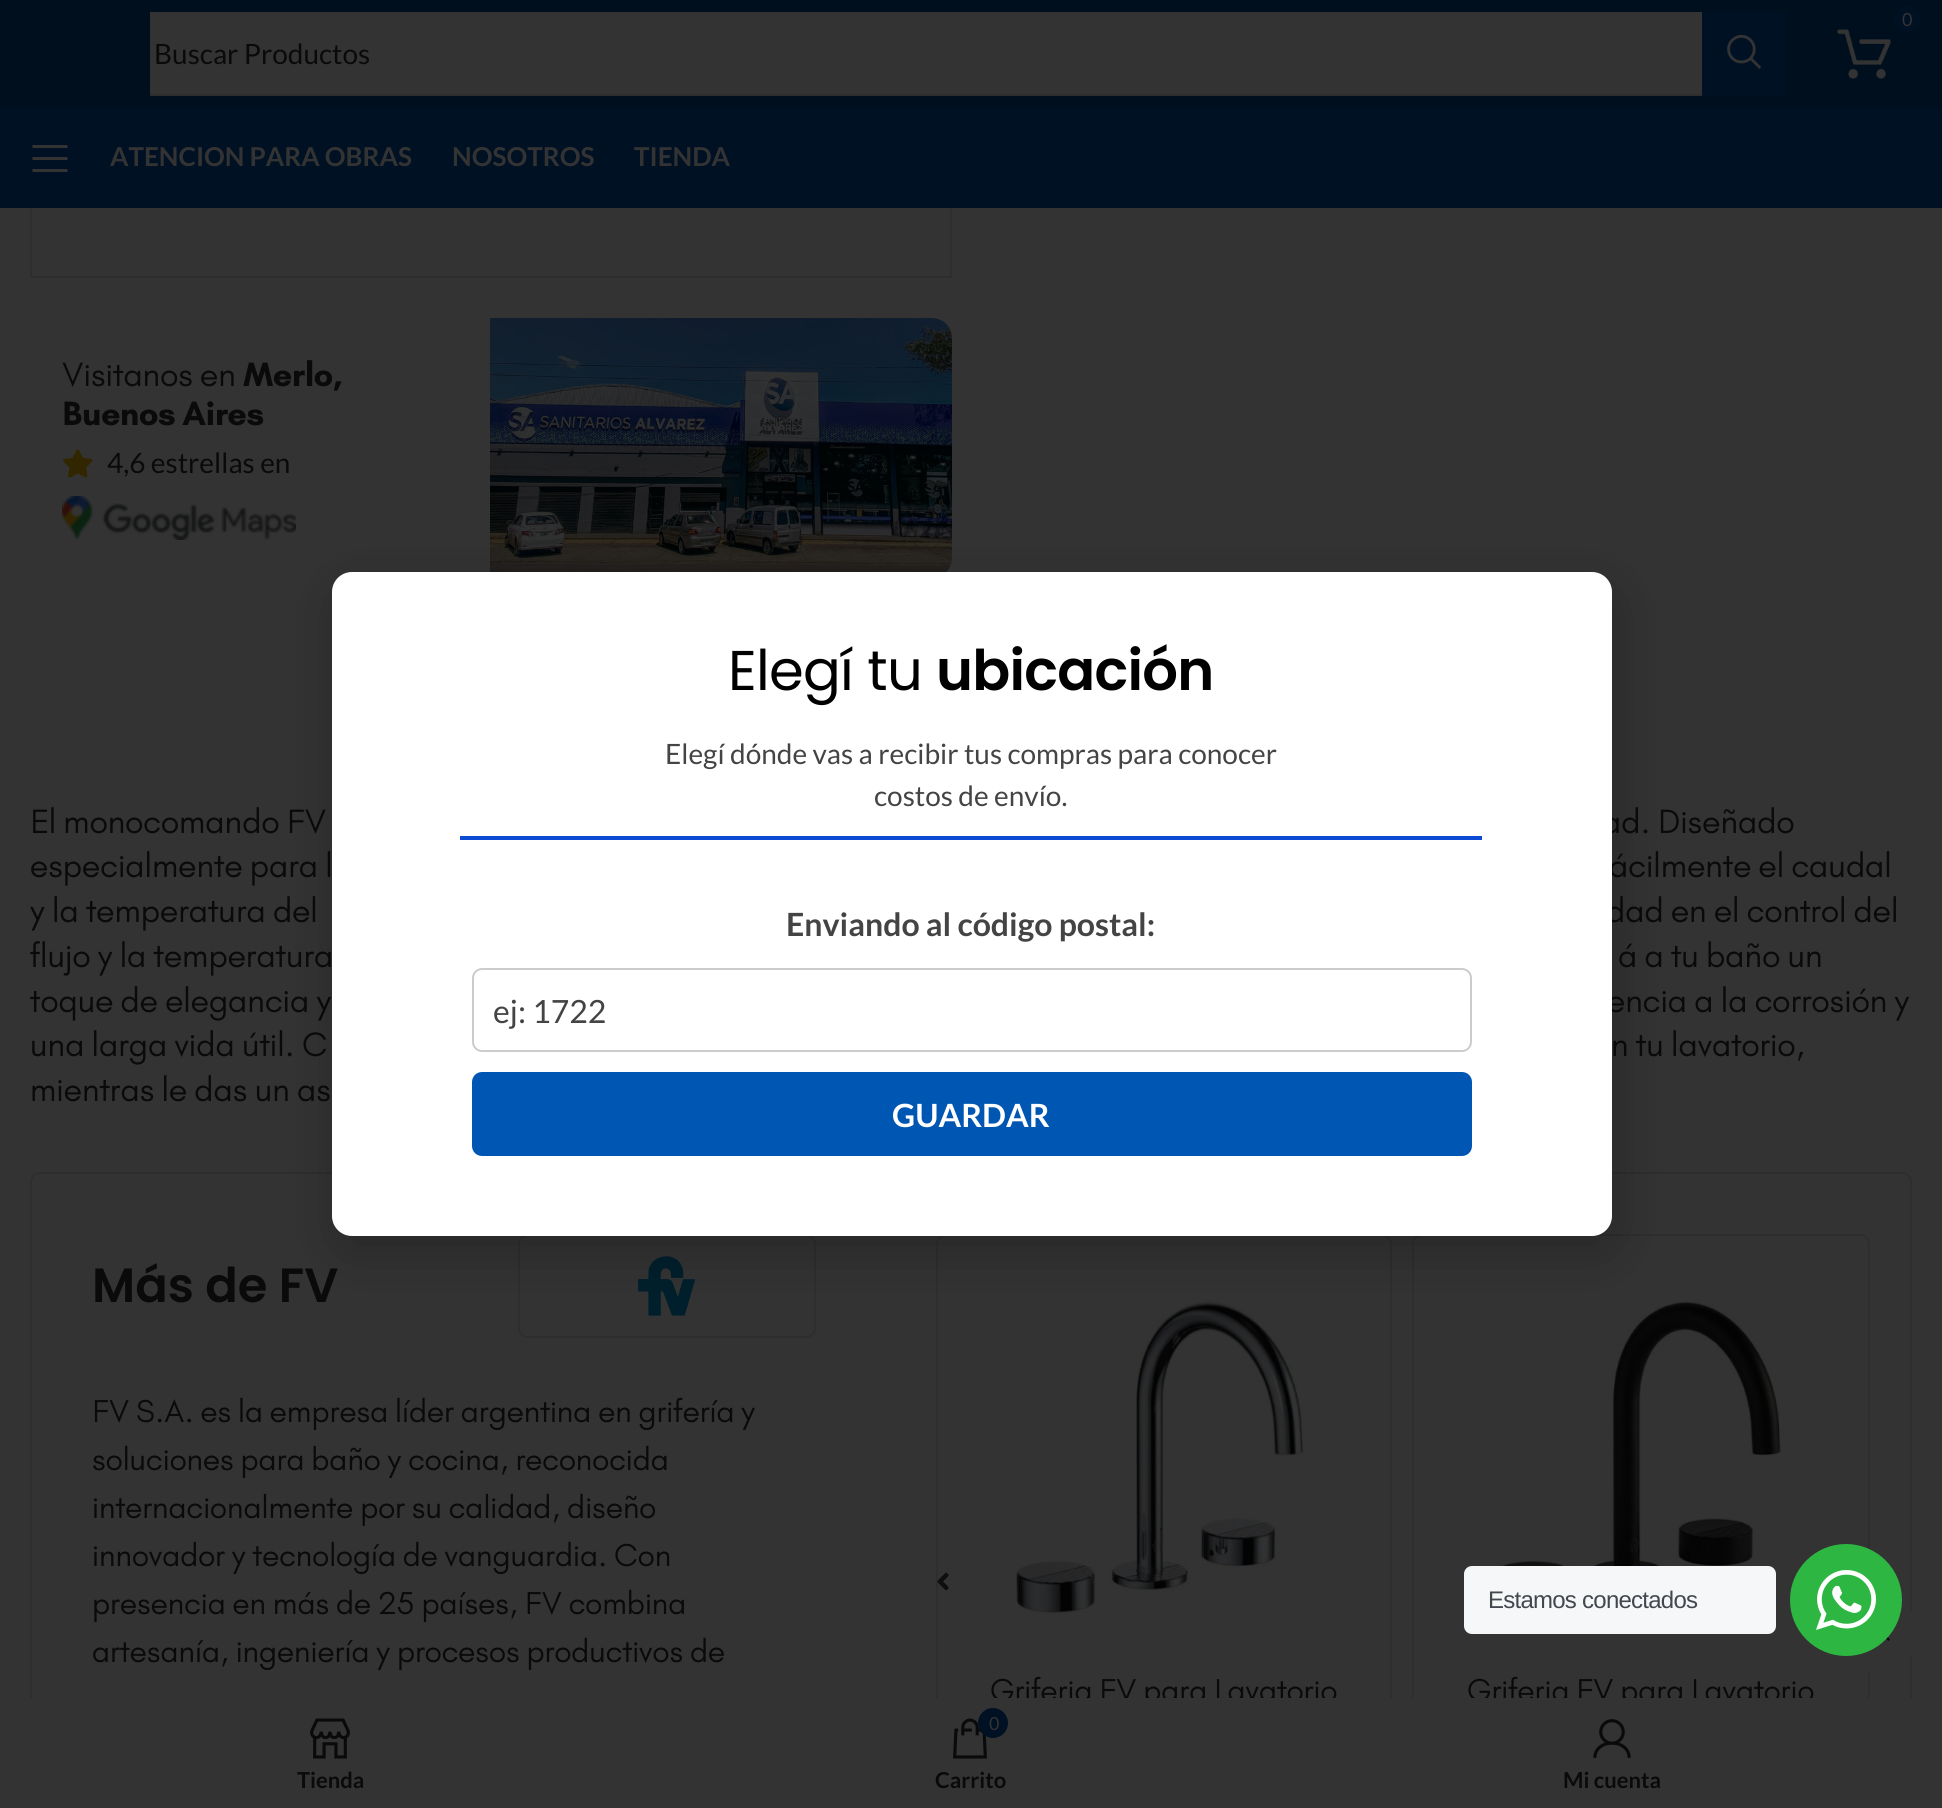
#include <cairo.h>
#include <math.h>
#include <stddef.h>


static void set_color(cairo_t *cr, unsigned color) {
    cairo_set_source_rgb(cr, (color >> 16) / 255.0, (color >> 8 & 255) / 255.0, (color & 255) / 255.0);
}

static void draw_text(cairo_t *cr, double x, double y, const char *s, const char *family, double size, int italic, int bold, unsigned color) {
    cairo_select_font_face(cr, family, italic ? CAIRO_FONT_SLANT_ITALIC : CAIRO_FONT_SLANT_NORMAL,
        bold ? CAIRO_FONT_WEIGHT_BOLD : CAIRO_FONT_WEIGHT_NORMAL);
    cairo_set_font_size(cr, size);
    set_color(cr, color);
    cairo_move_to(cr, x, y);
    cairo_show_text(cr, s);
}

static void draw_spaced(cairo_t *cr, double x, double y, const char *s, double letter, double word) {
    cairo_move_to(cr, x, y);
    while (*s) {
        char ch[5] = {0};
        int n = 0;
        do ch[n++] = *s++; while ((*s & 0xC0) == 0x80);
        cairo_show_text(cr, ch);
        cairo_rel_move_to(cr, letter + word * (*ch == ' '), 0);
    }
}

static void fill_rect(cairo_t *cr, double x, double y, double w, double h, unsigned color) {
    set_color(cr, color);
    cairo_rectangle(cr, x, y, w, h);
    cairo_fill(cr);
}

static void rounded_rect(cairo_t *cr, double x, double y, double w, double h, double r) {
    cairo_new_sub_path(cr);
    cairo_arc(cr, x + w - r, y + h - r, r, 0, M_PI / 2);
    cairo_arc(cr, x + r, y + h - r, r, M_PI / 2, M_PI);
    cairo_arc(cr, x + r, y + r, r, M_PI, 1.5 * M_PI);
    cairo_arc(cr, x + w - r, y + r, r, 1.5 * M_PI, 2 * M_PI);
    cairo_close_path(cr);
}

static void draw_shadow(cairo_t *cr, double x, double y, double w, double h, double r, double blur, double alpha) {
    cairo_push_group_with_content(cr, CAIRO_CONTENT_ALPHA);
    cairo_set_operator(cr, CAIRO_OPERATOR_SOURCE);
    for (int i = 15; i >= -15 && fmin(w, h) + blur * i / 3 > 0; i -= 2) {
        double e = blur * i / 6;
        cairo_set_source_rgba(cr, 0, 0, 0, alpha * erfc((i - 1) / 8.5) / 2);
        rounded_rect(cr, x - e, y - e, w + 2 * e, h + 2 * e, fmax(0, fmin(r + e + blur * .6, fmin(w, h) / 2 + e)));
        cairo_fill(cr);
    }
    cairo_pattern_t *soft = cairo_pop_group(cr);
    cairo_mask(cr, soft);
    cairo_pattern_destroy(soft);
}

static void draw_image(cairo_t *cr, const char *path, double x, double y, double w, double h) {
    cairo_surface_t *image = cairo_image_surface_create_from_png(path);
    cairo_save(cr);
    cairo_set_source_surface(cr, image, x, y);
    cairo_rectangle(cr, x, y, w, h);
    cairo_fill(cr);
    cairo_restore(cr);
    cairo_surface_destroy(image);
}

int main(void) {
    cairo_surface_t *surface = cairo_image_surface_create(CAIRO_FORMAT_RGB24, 1942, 1808);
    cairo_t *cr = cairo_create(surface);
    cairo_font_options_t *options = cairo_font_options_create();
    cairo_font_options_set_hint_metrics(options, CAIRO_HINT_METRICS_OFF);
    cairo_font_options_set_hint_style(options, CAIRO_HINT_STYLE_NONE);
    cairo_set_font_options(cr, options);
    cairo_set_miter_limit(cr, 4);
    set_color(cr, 0x333333);
    cairo_paint(cr);
    set_color(cr, 0x2E2E2E);
    cairo_new_path(cr);
    cairo_move_to(cr, 952, -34);
    cairo_line_to(cr, 952, 278);
    cairo_line_to(cr, 950, 276);
    cairo_line_to(cr, 950, -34);
    cairo_close_path(cr);
    cairo_fill(cr);
    cairo_set_source_rgba(cr, 0.012, 0.012, 0.012, 0.1);
    cairo_new_path(cr);
    cairo_move_to(cr, 952, 278);
    cairo_line_to(cr, 30, 278);
    cairo_line_to(cr, 32, 276);
    cairo_line_to(cr, 950, 276);
    cairo_close_path(cr);
    cairo_fill(cr);
    cairo_new_path(cr);
    cairo_move_to(cr, 30, 278);
    cairo_line_to(cr, 30, -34);
    cairo_line_to(cr, 32, -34);
    cairo_line_to(cr, 32, 276);
    cairo_close_path(cr);
    cairo_fill(cr);
    fill_rect(cr, 0, 0, 1942, 108, 0x000F1D);
    set_color(cr, 0x001124);
    cairo_arc(cr, 1907, 19, 13, 0, 2 * M_PI);
    cairo_fill(cr);
    draw_text(cr, 1902, 26, "0", "Lato", 18, 0, 0, 0x333333);
    draw_image(cr, "assets/img1.png", 1837, 29, 54, 50);
    fill_rect(cr, 150, 12, 1552, 82, 0x333333);
    fill_rect(cr, 150, 94, 1552, 2, 0x2E2E2E);
    draw_text(cr, 154, 64, "Buscar Productos", "Lato", 28, 0, 0, 0x0A0A0A);
    fill_rect(cr, 1702, 12, 84, 84, 0x001124);
    draw_image(cr, "assets/img2.png", 1727, 34, 35, 35);
    fill_rect(cr, 0, 108, 1942, 100, 0x001124);
    set_color(cr, 0x333333);
    cairo_new_path(cr);
    cairo_move_to(cr, 32.5, 148);
    cairo_line_to(cr, 67.5, 148);
    cairo_line_to(cr, 67.5, 145);
    cairo_line_to(cr, 32.5, 145);
    cairo_close_path(cr);
    cairo_move_to(cr, 32.5, 160);
    cairo_line_to(cr, 67.5, 160);
    cairo_line_to(cr, 67.5, 157);
    cairo_line_to(cr, 32.5, 157);
    cairo_close_path(cr);
    cairo_move_to(cr, 32.5, 172);
    cairo_line_to(cr, 67.5, 172);
    cairo_line_to(cr, 67.5, 169);
    cairo_line_to(cr, 32.5, 169);
    cairo_close_path(cr);
    cairo_fill(cr);
    draw_text(cr, 110, 166, "ATENCION PARA OBRAS", "Lato", 26, 0, 1, 0x333333);
    draw_text(cr, 452, 166, "NOSOTROS", "Lato", 26, 0, 1, 0x333333);
    draw_text(cr, 634, 166, "TIENDA", "Lato", 26, 0, 1, 0x333333);
    draw_text(cr, 62, 386, "Visitanos en", "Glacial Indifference", 32, 0, 0, 0x0A0A0A);
    draw_text(cr, 243, 386, "Merlo,", "Glacial Indifference", 32, 0, 1, 0x0A0A0A);
    draw_text(cr, 62, 425, "Buenos Aires", "Glacial Indifference", 32, 0, 1, 0x0A0A0A);
    draw_image(cr, "assets/img3.png", 63, 449, 30, 29);
    draw_text(cr, 107, 473, "4,6 estrellas en", "Lato", 28, 0, 0, 0x0A0A0A);
    draw_image(cr, "assets/img4.png", 62, 496, 234, 44);
    draw_image(cr, "assets/img5.png", 490, 318, 462, 254);
    draw_text(cr, 30, 833, "El monocomando FV", "Glacial Indifference", 32, 0, 0, 0x0A0A0A);
    draw_text(cr, 1602, 833, "ad. Diseñado", "Glacial Indifference", 32, 0, 0, 0x0A0A0A);
    draw_text(cr, 30, 877, "especialmente para l", "Glacial Indifference", 32, 0, 0, 0x0A0A0A);
    draw_text(cr, 1609, 877, "ácilmente el caudal", "Glacial Indifference", 32, 0, 0, 0x0A0A0A);
    draw_text(cr, 30, 922, "y la temperatura del", "Glacial Indifference", 32, 0, 0, 0x0A0A0A);
    draw_text(cr, 1606, 922, "dad en el control del", "Glacial Indifference", 32, 0, 0, 0x0A0A0A);
    draw_text(cr, 30, 967, "flujo y la temperatura", "Glacial Indifference", 32, 0, 0, 0x0A0A0A);
    draw_text(cr, 1618, 967, "á a tu baño un", "Glacial Indifference", 32, 0, 0, 0x0A0A0A);
    draw_text(cr, 30, 1012, "toque de elegancia y", "Glacial Indifference", 32, 0, 0, 0x0A0A0A);
    draw_text(cr, 1607, 1012, "encia a la corrosión y", "Glacial Indifference", 32, 0, 0, 0x0A0A0A);
    draw_text(cr, 30, 1056, "una larga vida útil. C", "Glacial Indifference", 32, 0, 0, 0x0A0A0A);
    draw_text(cr, 1611, 1056, "n tu lavatorio,", "Glacial Indifference", 32, 0, 0, 0x0A0A0A);
    draw_text(cr, 30, 1101, "mientras le das un as", "Glacial Indifference", 32, 0, 0, 0x0A0A0A);
    rounded_rect(cr, 31, 1173, 1880, 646, 9);
    set_color(cr, 0x2E2E2E);
    cairo_stroke(cr);
    draw_text(cr, 92, 1302, "Más de FV", "Poppins SemiBold", 48, 0, 0, 0x0A0A0A);
    rounded_rect(cr, 519, 1235, 296, 102, 9);
    set_color(cr, 0x2E2E2E);
    cairo_stroke(cr);
    draw_image(cr, "assets/img6.png", 638, 1256, 58, 60);
    draw_text(cr, 92, 1422, "FV S.A. es la empresa líder argentina en grifería y", "Glacial Indifference", 30, 0, 0, 0x0A0A0A);
    draw_text(cr, 92, 1470, "soluciones para baño y cocina, reconocida", "Glacial Indifference", 30, 0, 0, 0x0A0A0A);
    draw_text(cr, 92, 1518, "internacionalmente por su calidad, diseño", "Glacial Indifference", 30, 0, 0, 0x0A0A0A);
    draw_text(cr, 92, 1566, "innovador y tecnología de vanguardia. Con", "Glacial Indifference", 30, 0, 0, 0x0A0A0A);
    draw_text(cr, 92, 1614, "presencia en más de 25 países, FV combina", "Glacial Indifference", 30, 0, 0, 0x0A0A0A);
    draw_text(cr, 92, 1662, "artesanía, ingeniería y procesos productivos de", "Glacial Indifference", 30, 0, 0, 0x0A0A0A);
    rounded_rect(cr, 937, 1235, 454, 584, 9);
    set_color(cr, 0x2E2E2E);
    cairo_stroke(cr);
    draw_image(cr, "assets/img7.png", 937, 1572, 12, 19);
    draw_image(cr, "assets/img8.png", 1013, 1301, 294, 315);
    draw_text(cr, 990, 1701, "Griferia FV para Lavatorio", "Glacial Indifference", 30, 0, 0, 0x0A0A0A);
    rounded_rect(cr, 1413, 1235, 456, 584, 9);
    set_color(cr, 0x2E2E2E);
    cairo_stroke(cr);
    draw_image(cr, "assets/img9.png", 1489, 1301, 293, 314);
    draw_text(cr, 1467, 1701, "Griferia FV para Lavatorio", "Glacial Indifference", 30, 0, 0, 0x0A0A0A);
    set_color(cr, 0x000000);
    draw_shadow(cr, 330, 582, 1292, 676, 26, 23, 0.2);
    set_color(cr, 0xFFFFFF);
    rounded_rect(cr, 332, 572, 1280, 664, 20);
    cairo_fill(cr);
    cairo_select_font_face(cr, "Poppins", CAIRO_FONT_SLANT_NORMAL, CAIRO_FONT_WEIGHT_NORMAL);
    cairo_set_font_size(cr, 56);
    set_color(cr, 0x000000);
    draw_spaced(cr, 728, 690, "Elegí tu", -0.75, 0);
    cairo_select_font_face(cr, "Poppins SemiBold", CAIRO_FONT_SLANT_NORMAL, CAIRO_FONT_WEIGHT_NORMAL);
    draw_spaced(cr, 936, 690, "ubicación", -0.75, 0);
    draw_text(cr, 665, 764, "Elegí dónde vas a recibir tus compras para conocer", "Lato", 28, 0, 0, 0x444444);
    draw_text(cr, 874, 806, "costos de envío.", "Lato", 28, 0, 0, 0x444444);
    fill_rect(cr, 460, 836, 1022, 4, 0x0E4BD5);
    draw_text(cr, 786, 936, "Enviando al código postal:", "Lato", 32, 0, 1, 0x444444);
    rounded_rect(cr, 473, 969, 998, 82, 9);
    set_color(cr, 0xCCCCCC);
    cairo_stroke(cr);
    draw_text(cr, 493, 1023, "ej: 1722", "Lato", 32, 0, 0, 0x444444);
    set_color(cr, 0x0056B3);
    rounded_rect(cr, 472, 1072, 1000, 84, 10);
    cairo_fill(cr);
    draw_text(cr, 892, 1127, "GUARDAR", "Lato", 32, 0, 1, 0xFFFFFF);
    set_color(cr, 0xF5F7F9);
    rounded_rect(cr, 1464, 1566, 312, 68, 8);
    cairo_fill(cr);
    cairo_select_font_face(cr, "Liberation Sans", CAIRO_FONT_SLANT_NORMAL, CAIRO_FONT_WEIGHT_NORMAL);
    cairo_set_font_size(cr, 24);
    set_color(cr, 0x43474E);
    draw_spaced(cr, 1488, 1608, "Estamos conectados", -0.75, 0);
    cairo_set_source_rgba(cr, 0.2, 0.2, 0.2, 0.9);
    cairo_new_path(cr);
    cairo_arc(cr, 1878, 1634, 40, 0, 2 * M_PI);
    cairo_fill(cr);
    set_color(cr, 0x0A0A0A);
    cairo_new_path(cr);
    cairo_move_to(cr, 1888.5, 1641);
    cairo_line_to(cr, 1890, 1639.5);
    cairo_line_to(cr, 1877, 1626.5);
    cairo_line_to(cr, 1864, 1639.5);
    cairo_line_to(cr, 1865.5, 1641);
    cairo_line_to(cr, 1877, 1629.5);
    cairo_close_path(cr);
    cairo_fill(cr);
    set_color(cr, 0x2DB742);
    cairo_arc(cr, 1846, 1600, 56, 0, 2 * M_PI);
    cairo_fill(cr);
    draw_image(cr, "assets/img10.png", 1816, 1570, 60, 60);
    fill_rect(cr, 30, 1698, 1882, 110, 0x333333);
    draw_image(cr, "assets/img11.png", 310, 1718, 40, 41);
    draw_text(cr, 297, 1788, "Tienda", "Lato", 22, 0, 1, 0x0A0A0A);
    draw_image(cr, "assets/img12.png", 953, 1718, 34, 41);
    set_color(cr, 0x001124);
    cairo_arc(cr, 993, 1723, 15, 0, 2 * M_PI);
    cairo_fill(cr);
    draw_text(cr, 989, 1730, "0", "Lato", 18, 0, 0, 0x333333);
    draw_text(cr, 935, 1788, "Carrito", "Lato", 22, 0, 1, 0x0A0A0A);
    draw_image(cr, "assets/img13.png", 1593, 1719, 38, 39);
    draw_text(cr, 1563, 1788, "Mi cuenta", "Lato", 22, 0, 1, 0x0A0A0A);
    cairo_surface_write_to_png(surface, "output.png");
    cairo_font_options_destroy(options);
    cairo_destroy(cr);
    cairo_surface_destroy(surface);
    return 0;
}
